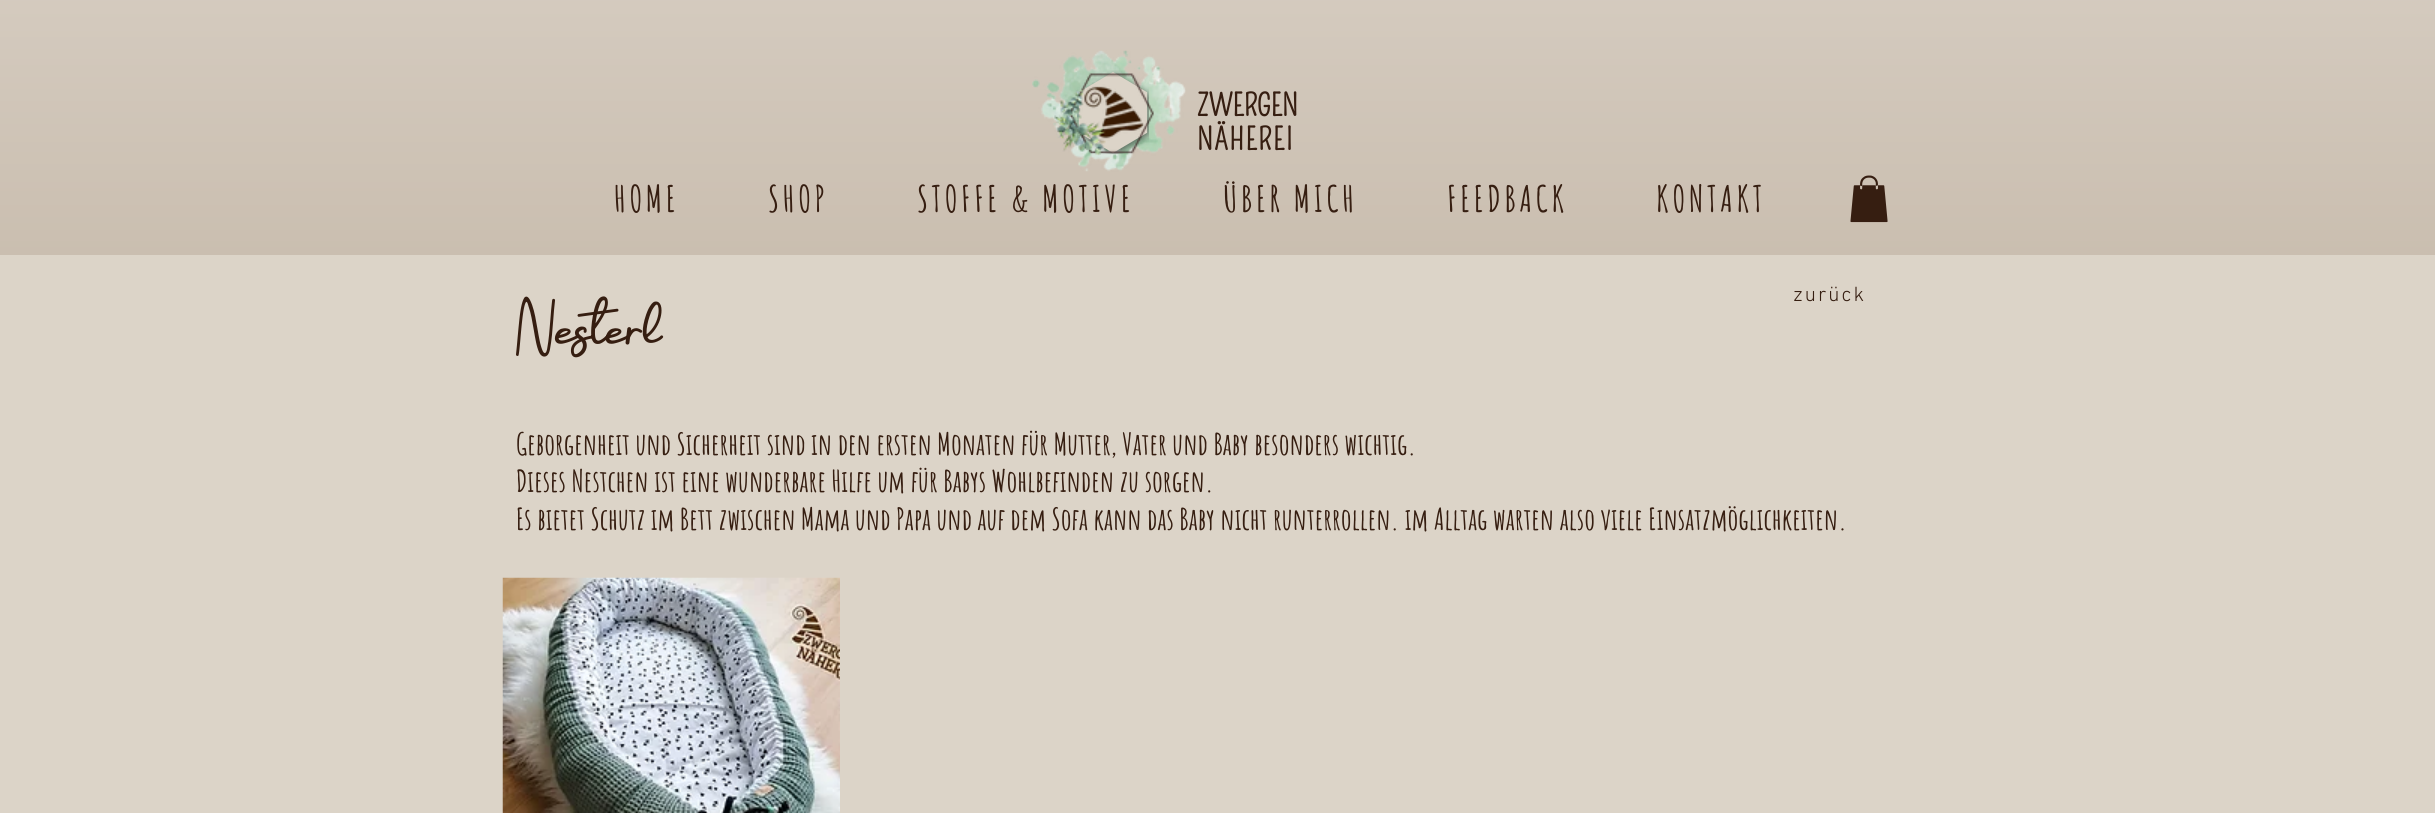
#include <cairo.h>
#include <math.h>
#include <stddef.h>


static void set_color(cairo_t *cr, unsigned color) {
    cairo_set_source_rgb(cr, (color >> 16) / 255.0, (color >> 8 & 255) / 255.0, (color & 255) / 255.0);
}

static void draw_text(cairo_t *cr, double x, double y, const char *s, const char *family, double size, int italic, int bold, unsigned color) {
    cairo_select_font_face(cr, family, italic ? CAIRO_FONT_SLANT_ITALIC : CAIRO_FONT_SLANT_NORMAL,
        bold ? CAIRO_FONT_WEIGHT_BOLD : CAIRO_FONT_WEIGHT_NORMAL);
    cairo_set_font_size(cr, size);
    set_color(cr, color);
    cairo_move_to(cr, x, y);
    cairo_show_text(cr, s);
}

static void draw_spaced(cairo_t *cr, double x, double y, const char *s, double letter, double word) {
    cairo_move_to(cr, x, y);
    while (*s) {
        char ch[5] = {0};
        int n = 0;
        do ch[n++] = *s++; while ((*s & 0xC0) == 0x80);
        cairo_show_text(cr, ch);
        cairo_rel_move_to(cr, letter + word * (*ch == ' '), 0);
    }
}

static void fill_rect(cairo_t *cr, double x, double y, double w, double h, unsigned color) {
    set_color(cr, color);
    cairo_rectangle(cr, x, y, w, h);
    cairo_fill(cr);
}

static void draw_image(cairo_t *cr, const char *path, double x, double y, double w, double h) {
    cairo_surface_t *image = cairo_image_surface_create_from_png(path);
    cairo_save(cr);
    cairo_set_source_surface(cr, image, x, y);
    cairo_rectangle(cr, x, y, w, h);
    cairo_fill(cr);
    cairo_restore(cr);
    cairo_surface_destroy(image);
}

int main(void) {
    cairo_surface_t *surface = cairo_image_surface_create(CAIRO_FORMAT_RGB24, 2435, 813);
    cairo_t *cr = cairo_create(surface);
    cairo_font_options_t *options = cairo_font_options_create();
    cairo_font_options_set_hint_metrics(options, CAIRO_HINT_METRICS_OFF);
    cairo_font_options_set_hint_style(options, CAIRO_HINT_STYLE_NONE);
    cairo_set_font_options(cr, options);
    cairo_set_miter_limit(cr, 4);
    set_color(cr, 0xDCD4C8);
    cairo_paint(cr);
    fill_rect(cr, 0, 0, 2435, 255, 0xC5B8A8);
    draw_image(cr, "assets/img1.png", 0, 0, 2435, 255);
    draw_image(cr, "assets/img2.png", 1032, 50, 154, 122);
    draw_image(cr, "assets/img3.png", 1077, 70, 72, 84);
    draw_image(cr, "assets/img4.png", 1054, 73, 100, 83);
    draw_text(cr, 1197, 116, "ZWERGEN", "Pompiere", 30, 0, 1, 0x361E11);
    draw_spaced(cr, 1197, 150, "NÄHEREI", 1.5, 0);
    cairo_select_font_face(cr, "Amatic SC", CAIRO_FONT_SLANT_NORMAL, CAIRO_FONT_WEIGHT_BOLD);
    cairo_set_font_size(cr, 36);
    draw_spaced(cr, 614, 212, "HOME", 3.6, 0);
    draw_spaced(cr, 768, 212, "SHOP", 3.6, 0);
    draw_spaced(cr, 917, 212, "STOFFE & MOTIVE", 3.6, 0);
    draw_spaced(cr, 1223, 212, "ÜBER MICH", 3.6, 0);
    draw_spaced(cr, 1447, 212, "FEEDBACK", 3.6, 0);
    draw_spaced(cr, 1656, 212, "KONTAKT", 3.6, 0);
    draw_image(cr, "assets/img5.png", 1850, 175, 38, 48);
    cairo_select_font_face(cr, "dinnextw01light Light", CAIRO_FONT_SLANT_NORMAL, CAIRO_FONT_WEIGHT_NORMAL);
    cairo_set_font_size(cr, 21);
    draw_spaced(cr, 1793, 301, "zurück", 2, 0);
    draw_text(cr, 516, 344, "Nesterl", "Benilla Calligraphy", 31.5, 0, 1, 0x361E11);
    draw_text(cr, 516, 455, "Geborgenheit und Sicherheit sind in den ersten Monaten für Mutter, Vater und Baby besonders wichtig.", "Amatic SC", 30, 0, 1, 0x361E11);
    draw_text(cr, 516, 492, "Dieses Nestchen ist eine wunderbare Hilfe um für Babys Wohlbefinden zu sorgen.", "Amatic SC", 30, 0, 1, 0x361E11);
    draw_text(cr, 516, 530, "Es bietet Schutz im Bett zwischen Mama und Papa und auf dem Sofa kann das Baby nicht runterrollen. im Alltag warten also viele Einsatzmöglichkeiten.", "Amatic SC", 30, 0, 1, 0x361E11);
    draw_image(cr, "assets/img6.png", 502, 577, 338, 236);
    cairo_surface_write_to_png(surface, "output.png");
    cairo_font_options_destroy(options);
    cairo_destroy(cr);
    cairo_surface_destroy(surface);
    return 0;
}
